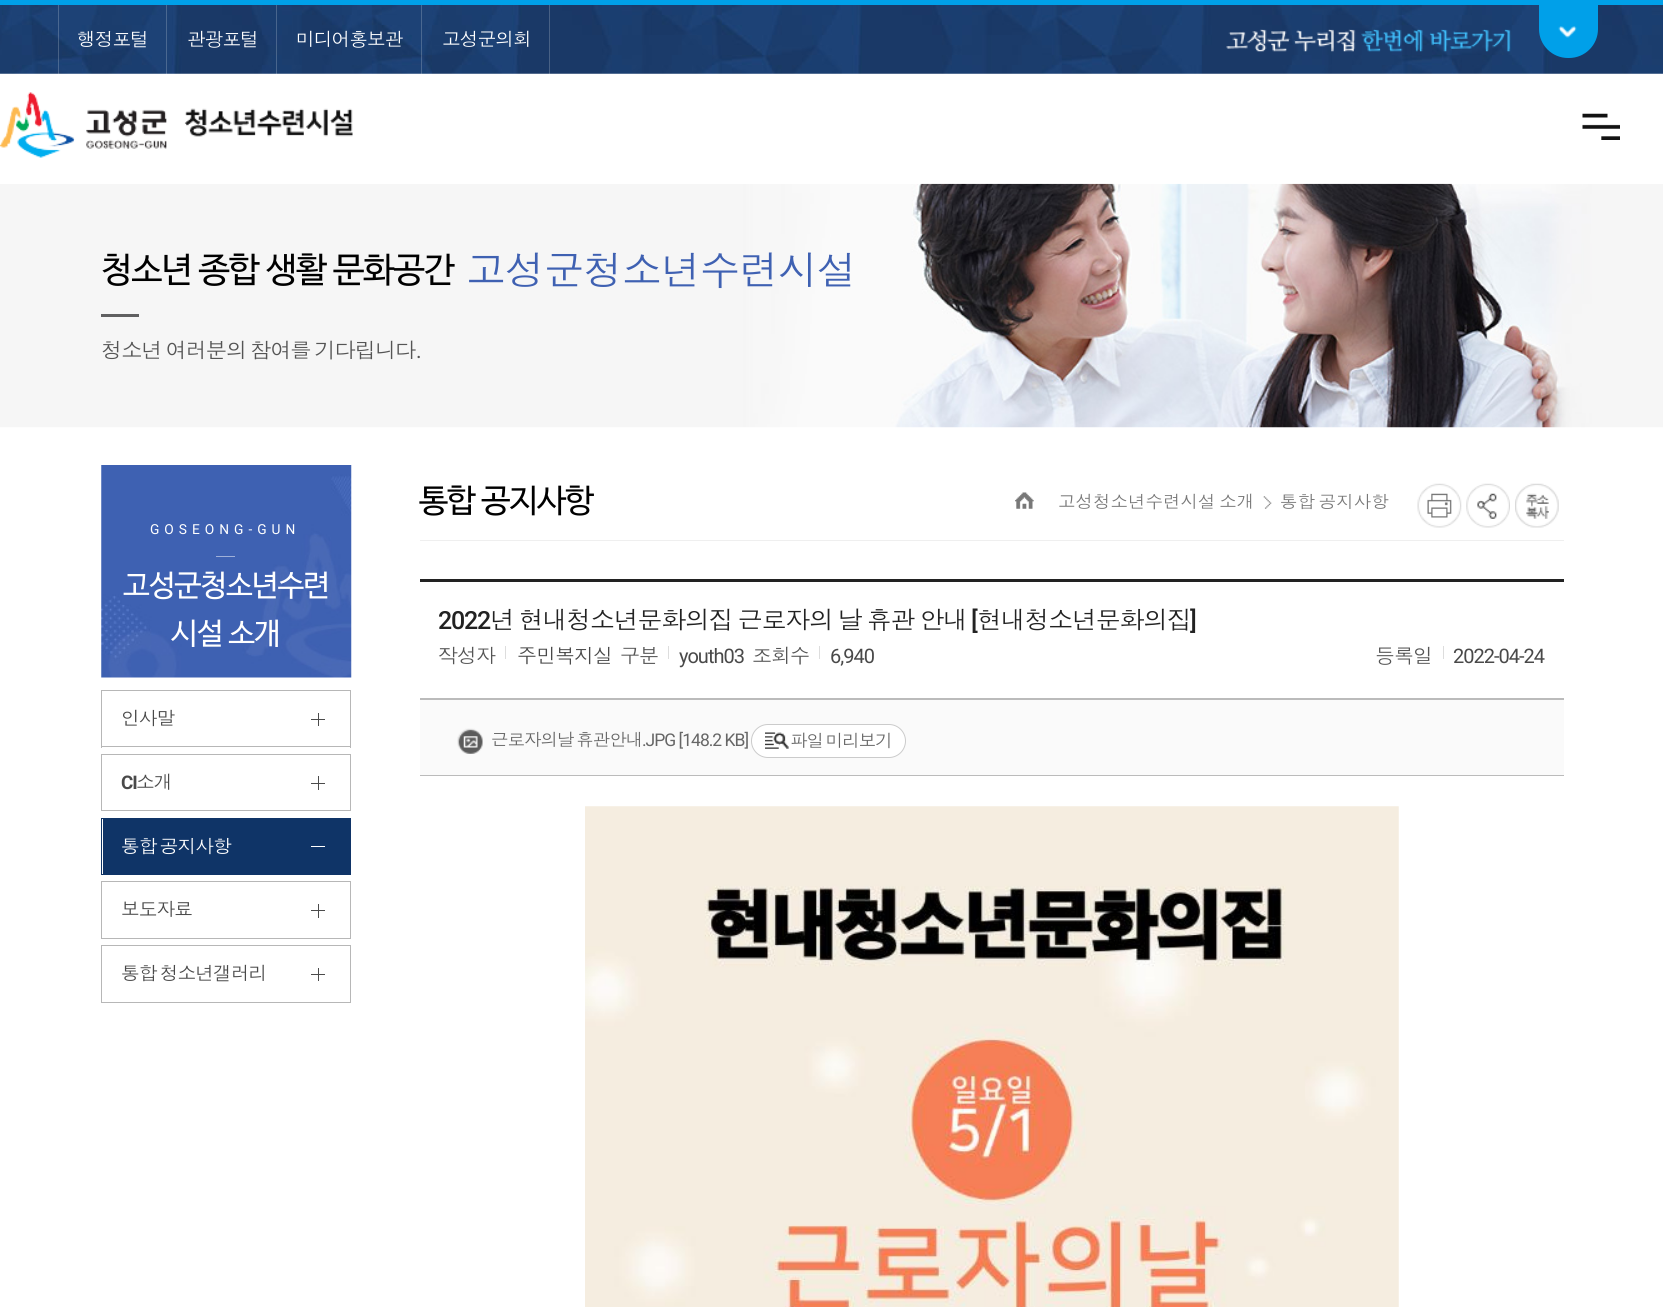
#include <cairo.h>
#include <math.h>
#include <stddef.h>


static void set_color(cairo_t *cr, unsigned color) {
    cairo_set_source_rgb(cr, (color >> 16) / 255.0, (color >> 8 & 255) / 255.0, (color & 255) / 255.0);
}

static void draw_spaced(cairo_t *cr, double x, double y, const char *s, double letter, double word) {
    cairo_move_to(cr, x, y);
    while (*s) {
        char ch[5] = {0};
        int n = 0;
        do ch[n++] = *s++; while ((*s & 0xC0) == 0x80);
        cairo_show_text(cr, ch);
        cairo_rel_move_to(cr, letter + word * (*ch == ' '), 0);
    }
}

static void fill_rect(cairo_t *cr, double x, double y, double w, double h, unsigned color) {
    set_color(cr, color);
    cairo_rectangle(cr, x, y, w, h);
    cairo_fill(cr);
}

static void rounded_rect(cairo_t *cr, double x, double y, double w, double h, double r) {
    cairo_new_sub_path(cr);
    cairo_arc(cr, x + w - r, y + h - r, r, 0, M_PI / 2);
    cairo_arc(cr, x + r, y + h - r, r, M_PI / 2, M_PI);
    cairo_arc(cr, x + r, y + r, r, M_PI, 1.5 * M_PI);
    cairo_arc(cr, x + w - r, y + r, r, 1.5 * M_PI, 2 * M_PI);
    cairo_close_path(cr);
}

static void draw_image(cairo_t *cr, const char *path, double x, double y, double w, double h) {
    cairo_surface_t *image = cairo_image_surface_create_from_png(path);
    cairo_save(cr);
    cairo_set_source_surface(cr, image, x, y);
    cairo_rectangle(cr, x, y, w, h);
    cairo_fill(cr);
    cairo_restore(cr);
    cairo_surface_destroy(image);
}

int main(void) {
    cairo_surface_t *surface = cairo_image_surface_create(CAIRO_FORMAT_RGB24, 1663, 1307);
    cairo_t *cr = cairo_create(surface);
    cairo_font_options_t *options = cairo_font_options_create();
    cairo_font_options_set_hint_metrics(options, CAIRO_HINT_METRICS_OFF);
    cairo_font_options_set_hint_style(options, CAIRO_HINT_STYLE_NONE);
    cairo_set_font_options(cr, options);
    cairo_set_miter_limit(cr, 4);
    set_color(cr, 0xFFFFFF);
    cairo_paint(cr);
    draw_image(cr, "assets/img1.png", 0, 5, 1663, 69);
    fill_rect(cr, 0, 0, 1663, 5, 0x00A0E9);
    cairo_set_source_rgba(cr, 1, 1, 1, 0.2);
    cairo_rectangle(cr, 549, 5, 1, 69);
    cairo_fill(cr);
    cairo_rectangle(cr, 58, 5, 1, 69);
    cairo_fill(cr);
    cairo_select_font_face(cr, "Dotum", CAIRO_FONT_SLANT_NORMAL, CAIRO_FONT_WEIGHT_NORMAL);
    cairo_set_font_size(cr, 18.75);
    set_color(cr, 0xFFFFFF);
    draw_spaced(cr, 77, 46, "행정포털", -1, 0);
    cairo_set_source_rgba(cr, 1, 1, 1, 0.2);
    cairo_rectangle(cr, 166, 5, 1, 69);
    cairo_fill(cr);
    set_color(cr, 0xFFFFFF);
    draw_spaced(cr, 187, 46, "관광포털", -1, 0);
    cairo_set_source_rgba(cr, 1, 1, 1, 0.2);
    cairo_rectangle(cr, 276, 5, 1, 69);
    cairo_fill(cr);
    set_color(cr, 0xFFFFFF);
    draw_spaced(cr, 296, 46, "미디어홍보관", -1, 0);
    cairo_set_source_rgba(cr, 1, 1, 1, 0.2);
    cairo_rectangle(cr, 421, 5, 1, 69);
    cairo_fill(cr);
    set_color(cr, 0xFFFFFF);
    draw_spaced(cr, 442, 46, "고성군의회", -1, 0);
    draw_image(cr, "assets/img2.png", 1226, 29, 285, 23);
    set_color(cr, 0x00A0E9);
    cairo_new_path(cr);
    cairo_move_to(cr, 1539, 5);
    cairo_line_to(cr, 1598, 5);
    cairo_line_to(cr, 1598, 29);
    cairo_curve_to(cr, 1598, 45, 1585, 58, 1569, 58);
    cairo_line_to(cr, 1568, 58);
    cairo_curve_to(cr, 1552, 58, 1539, 45, 1539, 29);
    cairo_close_path(cr);
    cairo_fill(cr);
    draw_image(cr, "assets/img3.png", 1558, 26, 19, 12);
    draw_image(cr, "assets/img4.png", 0, 92, 353, 66);
    draw_image(cr, "assets/img5.png", 1582, 113, 38, 27);
    draw_image(cr, "assets/img6.png", 0, 183, 1663, 245);
    cairo_select_font_face(cr, "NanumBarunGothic", CAIRO_FONT_SLANT_NORMAL, CAIRO_FONT_WEIGHT_NORMAL);
    cairo_set_font_size(cr, 35);
    set_color(cr, 0x000000);
    draw_spaced(cr, 101, 281, "청소년 종합 생활 문화공간", -1, 0);
    cairo_select_font_face(cr, "Dotum", CAIRO_FONT_SLANT_NORMAL, CAIRO_FONT_WEIGHT_NORMAL);
    cairo_set_font_size(cr, 40);
    set_color(cr, 0x3F61B2);
    draw_spaced(cr, 466, 285, "고성군청소년수련시설", -1, 0);
    fill_rect(cr, 101, 314, 38, 3, 0x606061);
    cairo_set_font_size(cr, 21.25);
    set_color(cr, 0x555555);
    draw_spaced(cr, 101, 358, "청소년 여러분의 참여를 기다립니다", -1.1, -2);
    cairo_select_font_face(cr, "Roboto", CAIRO_FONT_SLANT_NORMAL, CAIRO_FONT_WEIGHT_NORMAL);
    draw_spaced(cr, 416, 358, ".", -1.1, 0);
    draw_image(cr, "assets/img7.png", 101, 465, 251, 213);
    cairo_set_font_size(cr, 13.75);
    set_color(cr, 0xFFFFFF);
    draw_spaced(cr, 150, 534, "GOSEONG-GUN", 5, 0);
    fill_rect(cr, 216, 556, 19, 1, 0x9FB0D9);
    cairo_select_font_face(cr, "NanumBarunGothic", CAIRO_FONT_SLANT_NORMAL, CAIRO_FONT_WEIGHT_NORMAL);
    cairo_set_font_size(cr, 30);
    set_color(cr, 0xFFFFFF);
    draw_spaced(cr, 123, 595, "고성군청소년수련", -1, 0);
    draw_spaced(cr, 171, 643, "시설 소개", -1, 0);
    fill_rect(cr, 101, 690, 250, 1, 0xB7B7B7);
    fill_rect(cr, 350, 691, 1, 57, 0xB7B7B7);
    fill_rect(cr, 101, 746, 250, 1, 0xB7B7B7);
    fill_rect(cr, 101, 691, 1, 57, 0xB7B7B7);
    cairo_select_font_face(cr, "Dotum", CAIRO_FONT_SLANT_NORMAL, CAIRO_FONT_WEIGHT_NORMAL);
    cairo_set_font_size(cr, 18.75);
    set_color(cr, 0x494949);
    draw_spaced(cr, 121, 725, "인사말", -1, 0);
    fill_rect(cr, 311, 719, 14, 1, 0x4B4B4B);
    fill_rect(cr, 318, 713, 1, 13, 0x4B4B4B);
    cairo_rectangle(cr, 101.5, 754.5, 249, 56);
    set_color(cr, 0xB7B7B7);
    cairo_set_line_width(cr, 1);
    cairo_stroke(cr);
    cairo_select_font_face(cr, "Roboto", CAIRO_FONT_SLANT_NORMAL, CAIRO_FONT_WEIGHT_BOLD);
    set_color(cr, 0x494949);
    draw_spaced(cr, 121, 789, "CI", -1, 0);
    cairo_select_font_face(cr, "Dotum", CAIRO_FONT_SLANT_NORMAL, CAIRO_FONT_WEIGHT_NORMAL);
    draw_spaced(cr, 136, 789, "소개", -1, 0);
    fill_rect(cr, 311, 783, 14, 1, 0x4B4B4B);
    fill_rect(cr, 318, 776, 1, 14, 0x4B4B4B);
    cairo_rectangle(cr, 101.5, 818.5, 249, 56);
    set_color(cr, 0x0F3467);
    cairo_stroke(cr);
    fill_rect(cr, 103, 819, 247, 55, 0x0F3467);
    set_color(cr, 0xFFFFFF);
    draw_spaced(cr, 121, 853, "통합 공지사항", -1, -2);
    fill_rect(cr, 311, 846, 14, 1, 0xFFFFFF);
    cairo_rectangle(cr, 101.5, 881.5, 249, 57);
    set_color(cr, 0xB7B7B7);
    cairo_stroke(cr);
    set_color(cr, 0x494949);
    draw_spaced(cr, 121, 916, "보도자료", -1, 0);
    fill_rect(cr, 311, 910, 14, 1, 0x4B4B4B);
    fill_rect(cr, 318, 904, 1, 14, 0x4B4B4B);
    cairo_rectangle(cr, 101.5, 945.5, 249, 57);
    set_color(cr, 0xB7B7B7);
    cairo_stroke(cr);
    set_color(cr, 0x494949);
    draw_spaced(cr, 121, 980, "통합 청소년갤러리", -1, -2);
    fill_rect(cr, 311, 974, 14, 1, 0x4B4B4B);
    fill_rect(cr, 318, 968, 1, 13, 0x4B4B4B);
    fill_rect(cr, 420, 540, 1144, 1, 0xEFEFEF);
    cairo_select_font_face(cr, "NanumBarunGothic", CAIRO_FONT_SLANT_NORMAL, CAIRO_FONT_WEIGHT_NORMAL);
    cairo_set_font_size(cr, 32.5);
    set_color(cr, 0x000000);
    draw_spaced(cr, 419, 511, "통합 공지사항", -1, 0);
    draw_image(cr, "assets/img8.png", 1015, 492, 19, 17);
    cairo_select_font_face(cr, "Dotum", CAIRO_FONT_SLANT_NORMAL, CAIRO_FONT_WEIGHT_NORMAL);
    cairo_set_font_size(cr, 17.5);
    set_color(cr, 0x787878);
    draw_spaced(cr, 1058, 508, "고성청소년수련시설 소개", 0, -2);
    draw_image(cr, "assets/img9.png", 1263, 496, 9, 13);
    draw_spaced(cr, 1280, 508, "통합 공지사항", 0, -2);
    draw_image(cr, "assets/img10.png", 1417, 483, 45, 45);
    draw_image(cr, "assets/img11.png", 1466, 483, 44, 45);
    draw_image(cr, "assets/img12.png", 1515, 483, 44, 45);
    fill_rect(cr, 420, 579, 1144, 3, 0x222222);
    fill_rect(cr, 420, 698, 1144, 2, 0xBBBBBB);
    cairo_select_font_face(cr, "Roboto Medium", CAIRO_FONT_SLANT_NORMAL, CAIRO_FONT_WEIGHT_NORMAL);
    cairo_set_font_size(cr, 25);
    set_color(cr, 0x222222);
    draw_spaced(cr, 438, 629, "2022", -1.25, 0);
    cairo_select_font_face(cr, "Dotum", CAIRO_FONT_SLANT_NORMAL, CAIRO_FONT_WEIGHT_NORMAL);
    draw_spaced(cr, 490, 629, "년 현내청소년문화의집 근로자의 날 휴관 안내", -1.25, -2);
    cairo_select_font_face(cr, "Roboto Medium", CAIRO_FONT_SLANT_NORMAL, CAIRO_FONT_WEIGHT_NORMAL);
    draw_spaced(cr, 971, 629, "[", -1.25, 0);
    cairo_select_font_face(cr, "Dotum", CAIRO_FONT_SLANT_NORMAL, CAIRO_FONT_WEIGHT_NORMAL);
    draw_spaced(cr, 977, 629, "현내청소년문화의집", -1.25, 0);
    cairo_select_font_face(cr, "Roboto Medium", CAIRO_FONT_SLANT_NORMAL, CAIRO_FONT_WEIGHT_NORMAL);
    draw_spaced(cr, 1190, 629, "]", -1.25, 0);
    cairo_select_font_face(cr, "Dotum", CAIRO_FONT_SLANT_NORMAL, CAIRO_FONT_WEIGHT_NORMAL);
    cairo_set_font_size(cr, 20);
    set_color(cr, 0x555555);
    draw_spaced(cr, 438, 663, "작성자", -1, 0);
    fill_rect(cr, 505, 646, 1, 13, 0xDDDDDD);
    set_color(cr, 0x494949);
    draw_spaced(cr, 517, 663, "주민복지실", -1, 0);
    set_color(cr, 0x555555);
    draw_spaced(cr, 620, 663, "구분", -1, 0);
    fill_rect(cr, 668, 646, 1, 13, 0xDDDDDD);
    cairo_select_font_face(cr, "Roboto", CAIRO_FONT_SLANT_NORMAL, CAIRO_FONT_WEIGHT_NORMAL);
    set_color(cr, 0x494949);
    draw_spaced(cr, 679, 663, "youth03", -1, 0);
    cairo_select_font_face(cr, "Dotum", CAIRO_FONT_SLANT_NORMAL, CAIRO_FONT_WEIGHT_NORMAL);
    set_color(cr, 0x555555);
    draw_spaced(cr, 752, 663, "조회수", -1, 0);
    fill_rect(cr, 819, 646, 1, 13, 0xDDDDDD);
    cairo_select_font_face(cr, "Roboto", CAIRO_FONT_SLANT_NORMAL, CAIRO_FONT_WEIGHT_NORMAL);
    set_color(cr, 0x494949);
    draw_spaced(cr, 830, 663, "6,940", -1, 0);
    cairo_select_font_face(cr, "Dotum", CAIRO_FONT_SLANT_NORMAL, CAIRO_FONT_WEIGHT_NORMAL);
    set_color(cr, 0x555555);
    draw_spaced(cr, 1375, 663, "등록일", -1, 0);
    fill_rect(cr, 1443, 646, 1, 13, 0xDDDDDD);
    cairo_select_font_face(cr, "Roboto", CAIRO_FONT_SLANT_NORMAL, CAIRO_FONT_WEIGHT_NORMAL);
    set_color(cr, 0x494949);
    draw_spaced(cr, 1453, 663, "2022-04-24", -1, 0);
    fill_rect(cr, 420, 700, 1144, 75, 0xFAFAFA);
    fill_rect(cr, 420, 775, 1144, 1, 0xBBBBBB);
    draw_image(cr, "assets/img13.png", 457, 728, 26, 26);
    cairo_select_font_face(cr, "Dotum", CAIRO_FONT_SLANT_NORMAL, CAIRO_FONT_WEIGHT_NORMAL);
    cairo_set_font_size(cr, 17.5);
    set_color(cr, 0x666666);
    draw_spaced(cr, 491, 746, "근로자의날 휴관안내", -1, -2);
    cairo_select_font_face(cr, "Roboto", CAIRO_FONT_SLANT_NORMAL, CAIRO_FONT_WEIGHT_NORMAL);
    draw_spaced(cr, 642, 746, ".JPG [148.2 KB]", -1, 0);
    set_color(cr, 0xFFFFFF);
    rounded_rect(cr, 751.5, 724.5, 154, 33, 16.5);
    cairo_fill_preserve(cr);
    set_color(cr, 0xCBCBCB);
    cairo_stroke(cr);
    draw_image(cr, "assets/img14.png", 765, 732, 24, 17);
    cairo_select_font_face(cr, "Dotum", CAIRO_FONT_SLANT_NORMAL, CAIRO_FONT_WEIGHT_NORMAL);
    set_color(cr, 0x666666);
    draw_spaced(cr, 790, 747, "파일 미리보기", -1, -2);
    draw_image(cr, "assets/img15.png", 585, 806, 814, 501);
    cairo_surface_write_to_png(surface, "output.png");
    cairo_font_options_destroy(options);
    cairo_destroy(cr);
    cairo_surface_destroy(surface);
    return 0;
}
